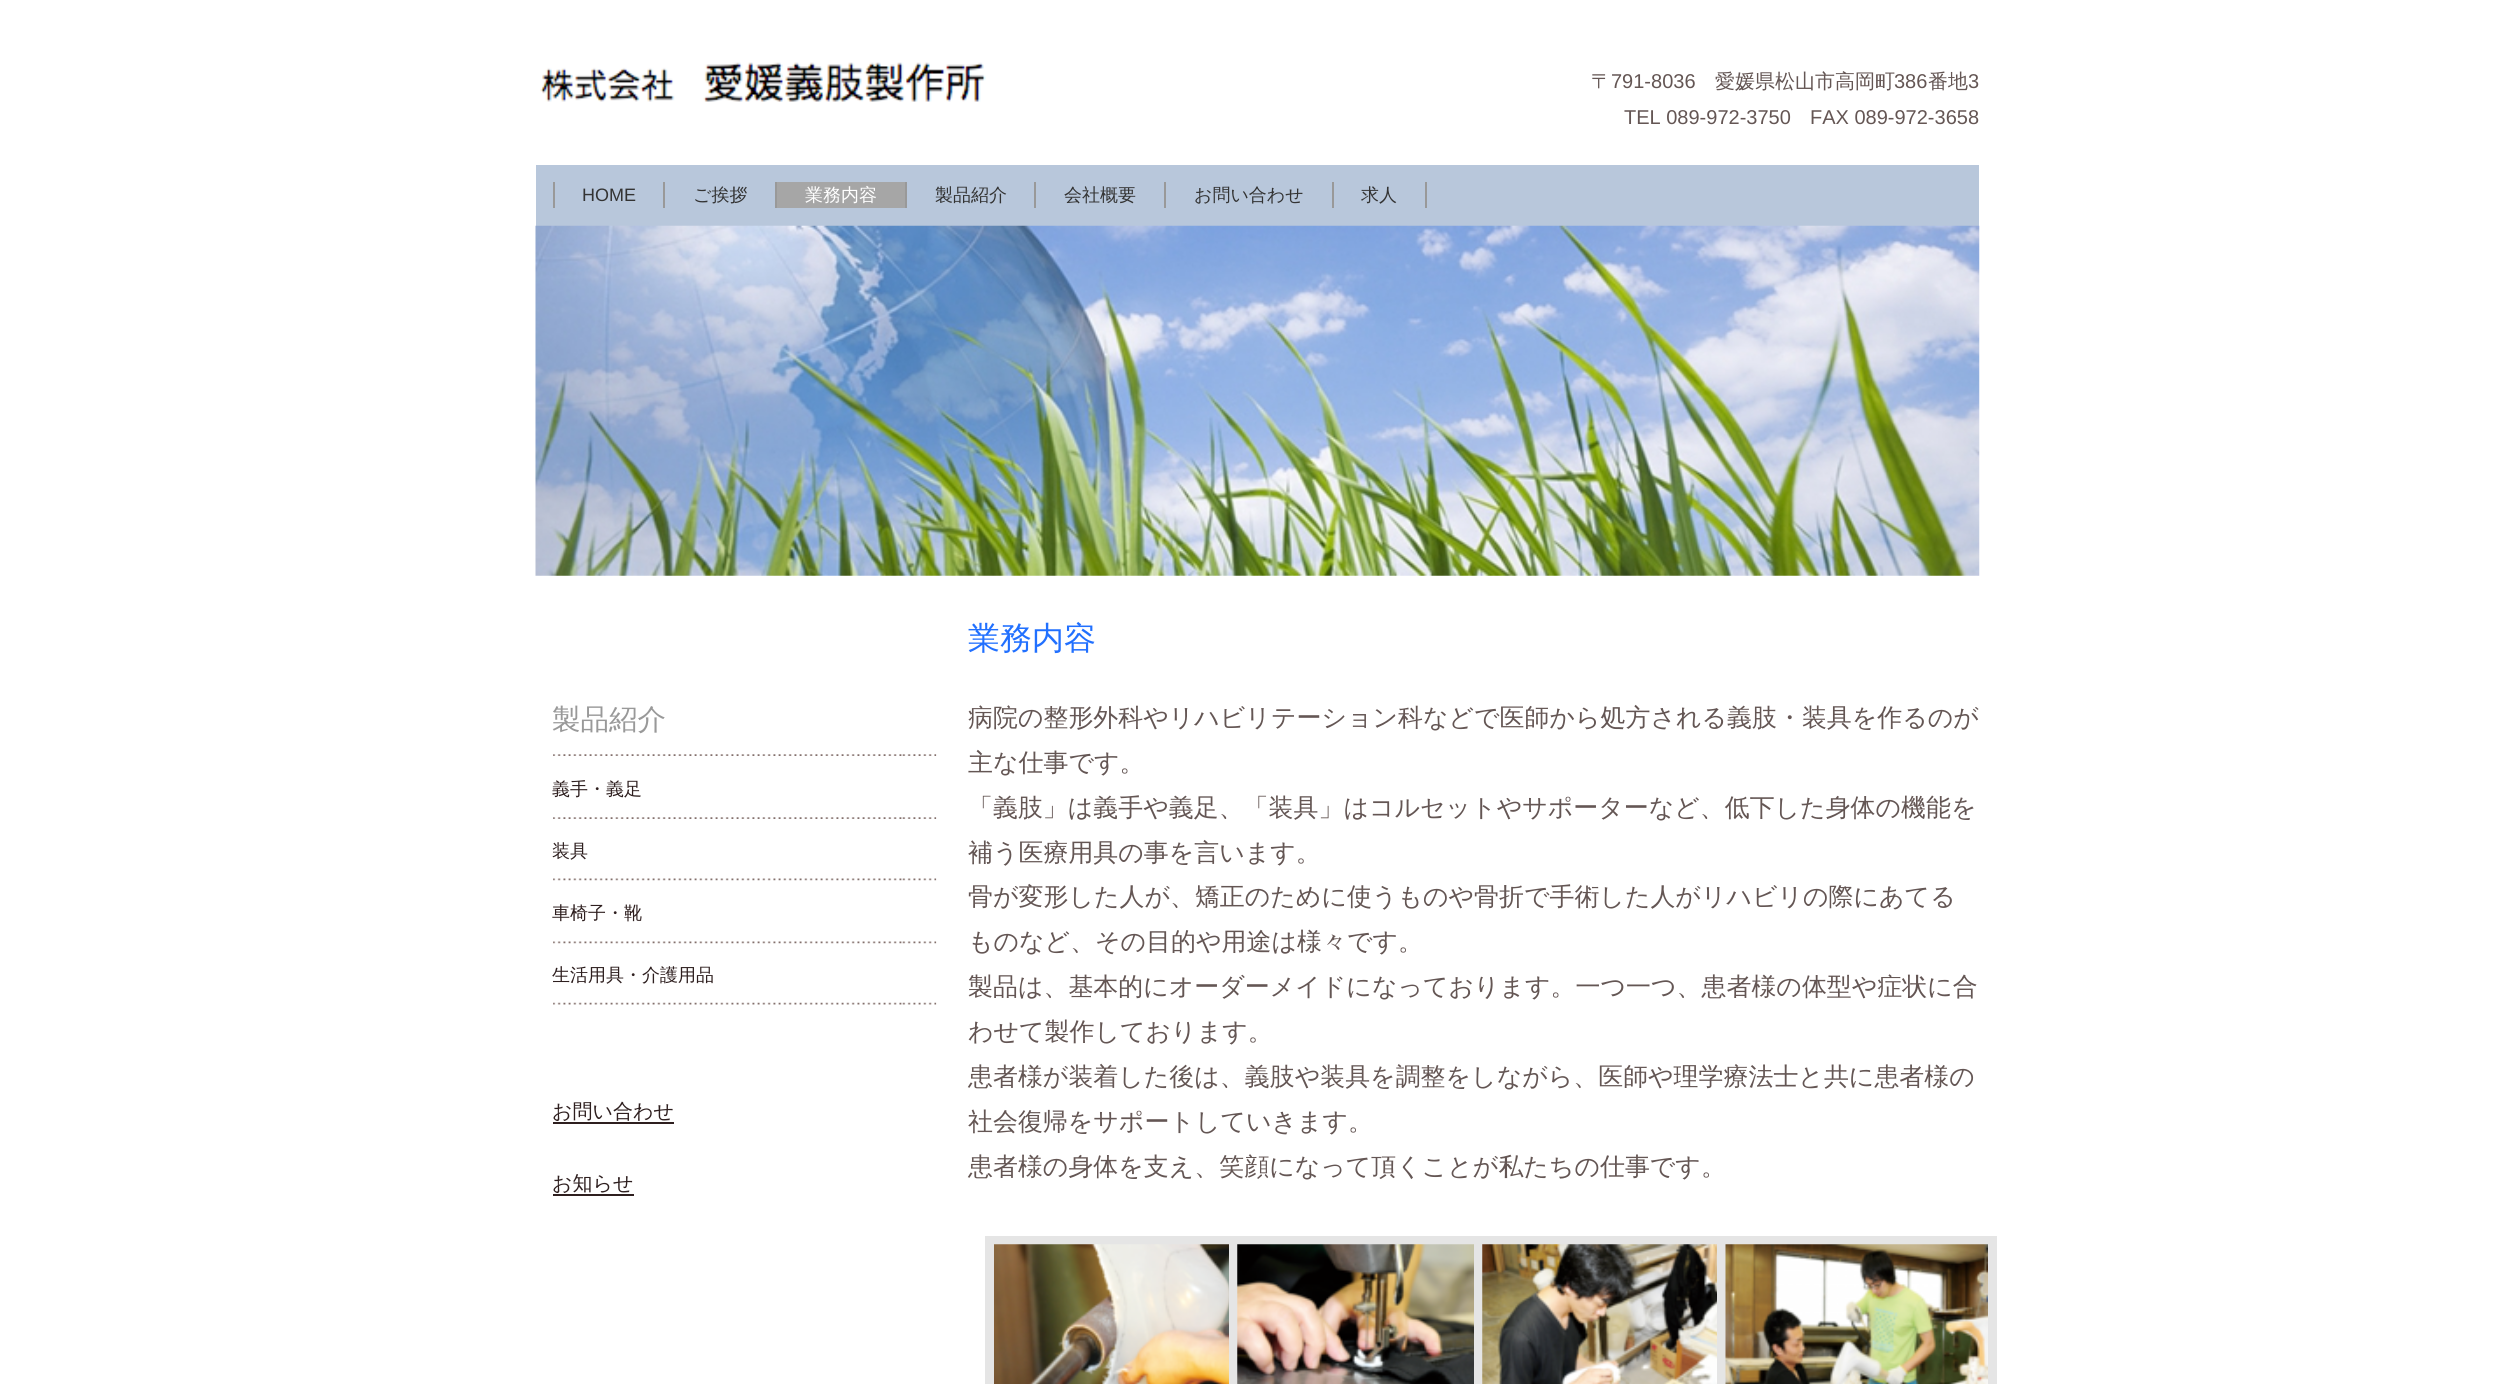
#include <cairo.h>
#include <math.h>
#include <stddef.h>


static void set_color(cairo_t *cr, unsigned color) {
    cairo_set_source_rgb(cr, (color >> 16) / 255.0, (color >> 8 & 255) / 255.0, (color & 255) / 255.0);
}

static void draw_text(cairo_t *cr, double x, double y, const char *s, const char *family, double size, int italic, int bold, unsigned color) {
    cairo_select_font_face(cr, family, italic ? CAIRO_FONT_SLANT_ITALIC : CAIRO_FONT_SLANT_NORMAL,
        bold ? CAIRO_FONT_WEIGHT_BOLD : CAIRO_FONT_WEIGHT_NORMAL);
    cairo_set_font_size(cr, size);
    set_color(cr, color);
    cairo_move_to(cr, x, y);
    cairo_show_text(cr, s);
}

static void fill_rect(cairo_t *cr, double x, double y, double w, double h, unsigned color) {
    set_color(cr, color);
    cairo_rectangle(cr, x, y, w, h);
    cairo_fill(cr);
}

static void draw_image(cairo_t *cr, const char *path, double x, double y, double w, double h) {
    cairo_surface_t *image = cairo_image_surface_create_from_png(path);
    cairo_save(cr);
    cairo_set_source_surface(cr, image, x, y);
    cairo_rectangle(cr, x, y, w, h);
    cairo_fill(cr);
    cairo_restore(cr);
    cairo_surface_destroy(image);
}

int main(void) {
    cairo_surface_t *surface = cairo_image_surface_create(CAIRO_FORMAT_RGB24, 2512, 1384);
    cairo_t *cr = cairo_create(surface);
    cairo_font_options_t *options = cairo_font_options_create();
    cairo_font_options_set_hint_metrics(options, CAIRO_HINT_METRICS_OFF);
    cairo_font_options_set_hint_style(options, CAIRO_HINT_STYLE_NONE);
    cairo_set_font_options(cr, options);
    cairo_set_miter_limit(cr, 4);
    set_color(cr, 0xFFFFFF);
    cairo_paint(cr);
    draw_image(cr, "assets/img1.png", 540, 62, 446, 40);
    draw_text(cr, 1591, 88, "〒", "WenQuanYi Zen Hei Medium", 20, 0, 0, 0x645654);
    draw_text(cr, 1611, 88, "791-8036", "Liberation Sans", 20, 0, 0, 0x645654);
    draw_text(cr, 1715, 88, "愛媛県松山市高岡町", "WenQuanYi Zen Hei Medium", 20, 0, 0, 0x645654);
    draw_text(cr, 1894, 88, "386", "Liberation Sans", 20, 0, 0, 0x645654);
    draw_text(cr, 1928, 88, "番地", "WenQuanYi Zen Hei Medium", 20, 0, 0, 0x645654);
    draw_text(cr, 1968, 88, "3", "Liberation Sans", 20, 0, 0, 0x645654);
    draw_text(cr, 1624, 124, "TEL 089-972-3750", "Liberation Sans", 20, 0, 0, 0x645654);
    draw_text(cr, 1810, 124, "FAX 089-972-3658", "Liberation Sans", 20, 0, 0, 0x645654);
    fill_rect(cr, 536, 165, 1443, 61, 0xB8C7DB);
    fill_rect(cr, 663, 182, 2, 26, 0x999999);
    fill_rect(cr, 553, 182, 2, 26, 0x999999);
    draw_text(cr, 582, 201, "HOME", "Liberation Sans", 18, 0, 0, 0x333333);
    fill_rect(cr, 775, 182, 2, 26, 0x999999);
    draw_text(cr, 693, 201, "ご挨拶", "WenQuanYi Zen Hei Medium", 18, 0, 0, 0x333333);
    fill_rect(cr, 905, 182, 2, 26, 0x999999);
    fill_rect(cr, 777, 182, 128, 26, 0xA6A6A6);
    draw_text(cr, 805, 201, "業務内容", "WenQuanYi Zen Hei Medium", 18, 0, 0, 0xFFFFFF);
    fill_rect(cr, 1034, 182, 2, 26, 0x999999);
    draw_text(cr, 935, 201, "製品紹介", "WenQuanYi Zen Hei Medium", 18, 0, 0, 0x333333);
    fill_rect(cr, 1164, 182, 2, 26, 0x999999);
    draw_text(cr, 1064, 201, "会社概要", "WenQuanYi Zen Hei Medium", 18, 0, 0, 0x333333);
    fill_rect(cr, 1332, 182, 2, 26, 0x999999);
    draw_text(cr, 1194, 201, "お問い合わせ", "WenQuanYi Zen Hei Medium", 18, 0, 0, 0x333333);
    fill_rect(cr, 1425, 182, 2, 26, 0x999999);
    draw_text(cr, 1361, 201, "求人", "WenQuanYi Zen Hei Medium", 18, 0, 0, 0x333333);
    draw_image(cr, "assets/img2.png", 535, 225, 1445, 351);
    draw_image(cr, "assets/img3.png", 553, 754, 384, 2);
    draw_text(cr, 552, 729, "製品紹介", "WenQuanYi Zen Hei Medium", 28.5, 0, 0, 0x999999);
    draw_image(cr, "assets/img3.png", 553, 817, 384, 2);
    draw_text(cr, 552, 795, "義手・義足", "WenQuanYi Zen Hei Medium", 18, 0, 0, 0x2E1F1F);
    draw_image(cr, "assets/img4.png", 553, 878, 384, 3);
    draw_text(cr, 552, 857, "装具", "WenQuanYi Zen Hei Medium", 18, 0, 0, 0x2E1F1F);
    draw_image(cr, "assets/img4.png", 553, 941, 384, 3);
    draw_text(cr, 552, 919, "車椅子・靴", "WenQuanYi Zen Hei Medium", 18, 0, 0, 0x2E1F1F);
    draw_image(cr, "assets/img5.png", 553, 1002, 384, 3);
    draw_text(cr, 552, 981, "生活用具・介護用品", "WenQuanYi Zen Hei Medium", 18, 0, 0, 0x2E1F1F);
    draw_text(cr, 552, 1118, "お問い合わせ", "WenQuanYi Zen Hei Medium", 20, 0, 0, 0x2E1F1F);
    fill_rect(cr, 553, 1122, 121, 2, 0x2E1F1F);
    draw_text(cr, 552, 1190, "お知らせ", "WenQuanYi Zen Hei Medium", 20, 0, 0, 0x2E1F1F);
    fill_rect(cr, 553, 1194, 81, 2, 0x2E1F1F);
    draw_text(cr, 968, 649, "業務内容", "WenQuanYi Zen Hei Medium", 32, 0, 0, 0x2170FF);
    draw_text(cr, 968, 726, "病院の整形外科やリハビリテーション科などで医師から処方される義肢・装具を作るのが", "WenQuanYi Zen Hei Medium", 24.95, 0, 0, 0x645654);
    draw_text(cr, 968, 771, "主な仕事です。", "WenQuanYi Zen Hei Medium", 24.95, 0, 0, 0x645654);
    draw_text(cr, 968, 816, "「義肢」は義手や義足、「装具」はコルセットやサポーターなど、低下した身体の機能を", "WenQuanYi Zen Hei Medium", 24.95, 0, 0, 0x645654);
    draw_text(cr, 968, 861, "補う医療用具の事を言います。", "WenQuanYi Zen Hei Medium", 24.95, 0, 0, 0x645654);
    draw_text(cr, 968, 905, "骨が変形した人が、矯正のために使うものや骨折で手術した人がリハビリの際にあてる", "WenQuanYi Zen Hei Medium", 24.95, 0, 0, 0x645654);
    draw_text(cr, 968, 950, "ものなど、その目的や用途は様々です。", "WenQuanYi Zen Hei Medium", 24.95, 0, 0, 0x645654);
    draw_text(cr, 968, 995, "製品は、基本的にオーダーメイドになっております。一つ一つ、患者様の体型や症状に合", "WenQuanYi Zen Hei Medium", 24.95, 0, 0, 0x645654);
    draw_text(cr, 968, 1040, "わせて製作しております。", "WenQuanYi Zen Hei Medium", 24.95, 0, 0, 0x645654);
    draw_text(cr, 968, 1085, "患者様が装着した後は、義肢や装具を調整をしながら、医師や理学療法士と共に患者様の", "WenQuanYi Zen Hei Medium", 24.95, 0, 0, 0x645654);
    draw_text(cr, 968, 1130, "社会復帰をサポートしていきます。", "WenQuanYi Zen Hei Medium", 24.95, 0, 0, 0x645654);
    draw_text(cr, 968, 1175, "患者様の身体を支え、笑顔になって頂くことが私たちの仕事です。", "WenQuanYi Zen Hei Medium", 24.95, 0, 0, 0x645654);
    fill_rect(cr, 985, 1236, 1012, 148, 0xE5E5E5);
    draw_image(cr, "assets/img6.png", 994, 1244, 235, 140);
    draw_image(cr, "assets/img7.png", 1237, 1244, 237, 140);
    draw_image(cr, "assets/img8.png", 1482, 1244, 235, 140);
    draw_image(cr, "assets/img9.png", 1725, 1244, 263, 140);
    cairo_surface_write_to_png(surface, "output.png");
    cairo_font_options_destroy(options);
    cairo_destroy(cr);
    cairo_surface_destroy(surface);
    return 0;
}
